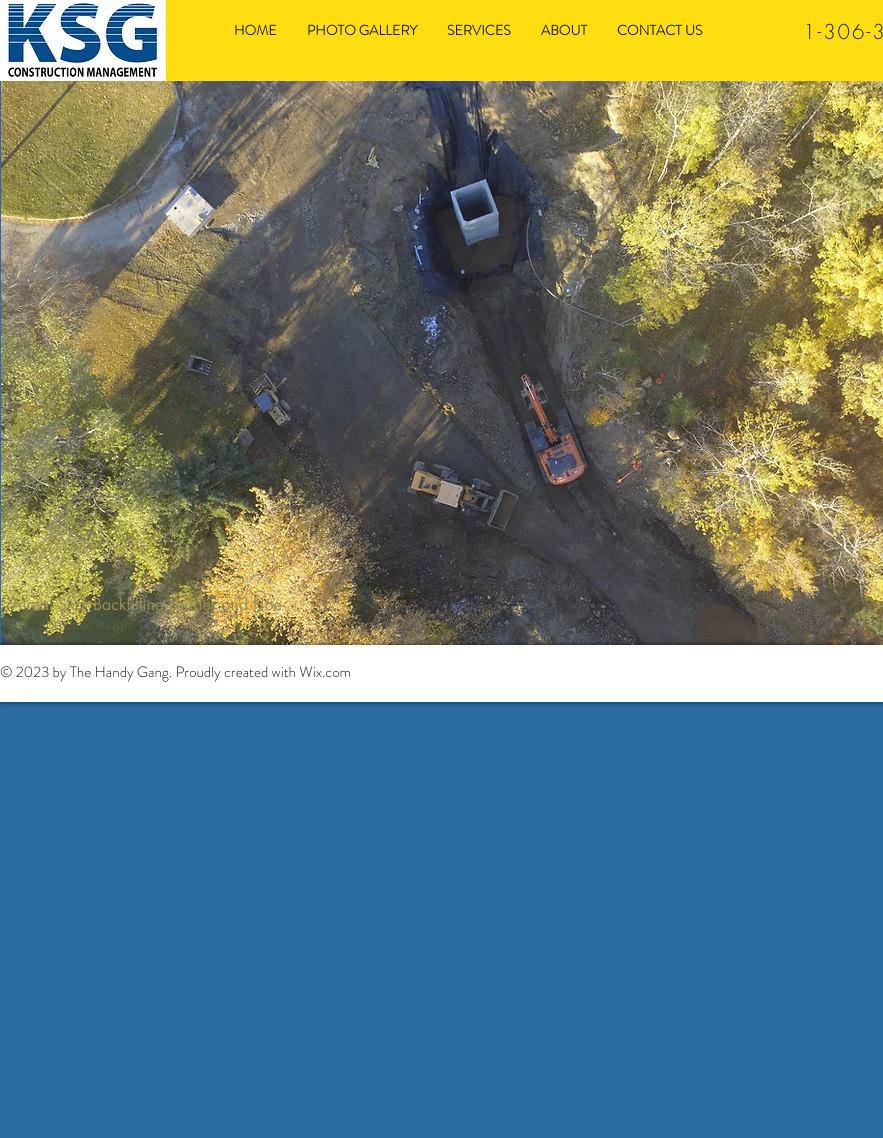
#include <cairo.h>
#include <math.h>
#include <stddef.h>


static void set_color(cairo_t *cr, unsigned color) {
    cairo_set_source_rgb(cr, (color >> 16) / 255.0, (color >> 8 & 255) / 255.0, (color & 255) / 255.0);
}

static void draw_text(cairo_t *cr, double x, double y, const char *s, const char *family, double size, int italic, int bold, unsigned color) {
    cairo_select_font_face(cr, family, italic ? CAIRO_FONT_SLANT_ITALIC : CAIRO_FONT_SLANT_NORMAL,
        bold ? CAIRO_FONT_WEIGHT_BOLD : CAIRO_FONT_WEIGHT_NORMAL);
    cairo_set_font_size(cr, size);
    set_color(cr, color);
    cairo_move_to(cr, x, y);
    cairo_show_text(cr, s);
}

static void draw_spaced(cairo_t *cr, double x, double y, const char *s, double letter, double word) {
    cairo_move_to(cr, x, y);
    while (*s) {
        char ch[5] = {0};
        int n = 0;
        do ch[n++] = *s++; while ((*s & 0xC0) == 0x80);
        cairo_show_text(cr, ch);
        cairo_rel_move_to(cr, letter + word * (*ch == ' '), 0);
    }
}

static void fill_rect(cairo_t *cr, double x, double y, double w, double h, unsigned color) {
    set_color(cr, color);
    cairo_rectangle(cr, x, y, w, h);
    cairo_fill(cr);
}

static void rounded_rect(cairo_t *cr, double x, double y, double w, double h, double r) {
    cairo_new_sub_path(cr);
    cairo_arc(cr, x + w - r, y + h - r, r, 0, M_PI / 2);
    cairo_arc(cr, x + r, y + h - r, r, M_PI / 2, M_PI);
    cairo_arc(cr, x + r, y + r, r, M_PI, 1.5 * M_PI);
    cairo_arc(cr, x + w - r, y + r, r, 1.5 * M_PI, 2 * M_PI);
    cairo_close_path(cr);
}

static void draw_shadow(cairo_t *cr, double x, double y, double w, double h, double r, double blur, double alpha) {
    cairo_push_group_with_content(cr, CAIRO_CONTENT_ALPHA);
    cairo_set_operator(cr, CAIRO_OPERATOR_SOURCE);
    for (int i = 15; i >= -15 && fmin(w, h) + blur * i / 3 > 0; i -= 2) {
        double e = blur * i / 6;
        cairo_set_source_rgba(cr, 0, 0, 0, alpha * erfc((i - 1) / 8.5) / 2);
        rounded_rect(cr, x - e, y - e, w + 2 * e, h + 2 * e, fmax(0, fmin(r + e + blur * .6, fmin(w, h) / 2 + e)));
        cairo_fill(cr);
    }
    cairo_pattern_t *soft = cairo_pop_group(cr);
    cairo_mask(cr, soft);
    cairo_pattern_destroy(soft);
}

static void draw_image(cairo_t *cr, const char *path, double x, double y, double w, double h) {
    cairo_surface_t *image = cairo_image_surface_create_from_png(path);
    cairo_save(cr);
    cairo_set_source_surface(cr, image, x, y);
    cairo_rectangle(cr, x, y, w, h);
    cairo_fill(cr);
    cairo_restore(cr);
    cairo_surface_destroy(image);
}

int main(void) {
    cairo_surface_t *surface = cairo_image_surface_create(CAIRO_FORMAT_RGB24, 883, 1138);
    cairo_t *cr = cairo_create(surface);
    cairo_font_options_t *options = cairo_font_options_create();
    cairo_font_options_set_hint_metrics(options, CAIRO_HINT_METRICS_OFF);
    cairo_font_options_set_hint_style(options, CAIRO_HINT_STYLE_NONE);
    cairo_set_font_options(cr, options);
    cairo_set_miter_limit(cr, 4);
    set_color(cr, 0x2B6CA3);
    cairo_paint(cr);
    fill_rect(cr, 166, 0, 717, 81, 0xFFDE11);
    draw_image(cr, "assets/img1.png", 0, 0, 166, 81);
    draw_text(cr, 234, 35, "HOME", "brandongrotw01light", 14, 0, 1, 0x1A1A1A);
    draw_text(cr, 307, 35, "PHOTO GALLERY", "brandongrotw01light", 14, 0, 1, 0x1A1A1A);
    draw_text(cr, 447, 35, "SERVICES", "brandongrotw01light", 14, 0, 1, 0x1A1A1A);
    draw_text(cr, 541, 35, "ABOUT", "brandongrotw01light", 14, 0, 1, 0x1A1A1A);
    draw_text(cr, 617, 35, "CONTACT US", "brandongrotw01light", 14, 0, 1, 0x1A1A1A);
    cairo_select_font_face(cr, "futura Light", CAIRO_FONT_SLANT_NORMAL, CAIRO_FONT_WEIGHT_NORMAL);
    cairo_set_font_size(cr, 20);
    draw_spaced(cr, 803, 39, "1-306-3", 2, 0);
    draw_image(cr, "assets/img2.png", 1, 81, 882, 564);
    draw_text(cr, 11, 610, "Aireal Shot Backfilling Loader and Hoe", "futura", 16, 0, 0, 0x968C51);
    draw_text(cr, 11, 629, "Describe your image", "futura Light", 14, 0, 0, 0x626843);
    set_color(cr, 0x000000);
    draw_shadow(cr, 0, 645, 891, 57, 0, 2.5, 0.7);
    fill_rect(cr, 0, 645, 883, 57, 0xFFFFFF);
    draw_text(cr, 0, 677, "© 2023 by The Handy Gang. Proudly created with Wix.com", "brandongrotw01light Light", 15, 0, 0, 0x1A1A1A);
    cairo_surface_write_to_png(surface, "output.png");
    cairo_font_options_destroy(options);
    cairo_destroy(cr);
    cairo_surface_destroy(surface);
    return 0;
}
